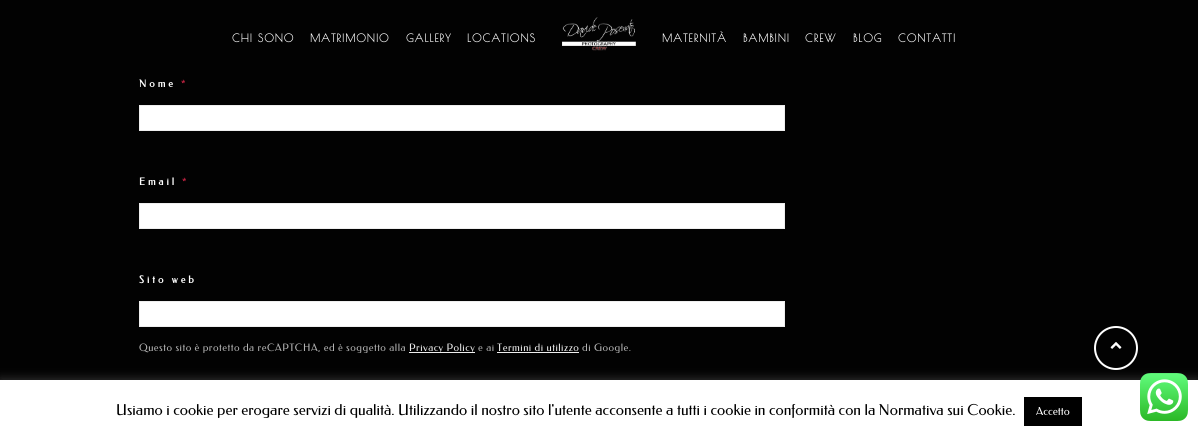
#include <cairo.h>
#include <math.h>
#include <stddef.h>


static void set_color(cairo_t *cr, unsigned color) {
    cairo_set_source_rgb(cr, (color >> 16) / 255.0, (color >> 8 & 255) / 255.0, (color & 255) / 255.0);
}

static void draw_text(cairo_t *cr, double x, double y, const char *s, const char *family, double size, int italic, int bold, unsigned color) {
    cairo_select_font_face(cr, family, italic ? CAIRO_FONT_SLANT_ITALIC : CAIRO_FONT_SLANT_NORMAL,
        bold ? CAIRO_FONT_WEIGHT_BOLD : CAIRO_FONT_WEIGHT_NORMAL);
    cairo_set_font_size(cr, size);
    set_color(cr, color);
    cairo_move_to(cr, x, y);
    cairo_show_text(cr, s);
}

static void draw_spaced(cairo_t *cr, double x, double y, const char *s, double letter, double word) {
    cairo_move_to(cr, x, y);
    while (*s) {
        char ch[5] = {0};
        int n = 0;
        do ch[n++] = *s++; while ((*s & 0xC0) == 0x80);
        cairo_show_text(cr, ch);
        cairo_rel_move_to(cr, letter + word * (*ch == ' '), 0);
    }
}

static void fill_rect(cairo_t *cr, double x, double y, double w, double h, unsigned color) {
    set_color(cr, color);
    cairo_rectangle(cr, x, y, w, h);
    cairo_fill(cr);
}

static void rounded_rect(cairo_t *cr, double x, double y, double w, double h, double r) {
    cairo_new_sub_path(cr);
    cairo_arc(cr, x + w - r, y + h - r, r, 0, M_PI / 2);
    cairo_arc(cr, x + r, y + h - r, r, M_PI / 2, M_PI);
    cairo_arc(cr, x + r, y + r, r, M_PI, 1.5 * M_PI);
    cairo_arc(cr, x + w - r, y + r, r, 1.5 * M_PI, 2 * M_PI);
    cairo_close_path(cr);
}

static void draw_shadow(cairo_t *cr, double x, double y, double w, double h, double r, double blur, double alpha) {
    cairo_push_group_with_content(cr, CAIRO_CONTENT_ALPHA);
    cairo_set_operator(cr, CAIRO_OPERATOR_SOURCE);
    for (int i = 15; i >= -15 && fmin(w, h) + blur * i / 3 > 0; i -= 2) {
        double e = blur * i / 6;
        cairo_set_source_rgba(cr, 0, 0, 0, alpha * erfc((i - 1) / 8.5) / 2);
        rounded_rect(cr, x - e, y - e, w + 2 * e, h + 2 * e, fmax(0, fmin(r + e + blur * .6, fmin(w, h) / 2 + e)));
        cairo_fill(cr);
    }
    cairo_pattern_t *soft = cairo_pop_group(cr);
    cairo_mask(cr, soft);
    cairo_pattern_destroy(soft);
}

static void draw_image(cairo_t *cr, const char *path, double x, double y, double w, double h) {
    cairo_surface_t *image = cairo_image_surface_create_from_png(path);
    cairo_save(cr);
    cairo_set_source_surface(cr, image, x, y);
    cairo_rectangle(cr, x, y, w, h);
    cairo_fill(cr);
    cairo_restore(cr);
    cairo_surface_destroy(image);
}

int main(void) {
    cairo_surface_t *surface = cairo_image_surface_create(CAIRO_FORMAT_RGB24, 1198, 438);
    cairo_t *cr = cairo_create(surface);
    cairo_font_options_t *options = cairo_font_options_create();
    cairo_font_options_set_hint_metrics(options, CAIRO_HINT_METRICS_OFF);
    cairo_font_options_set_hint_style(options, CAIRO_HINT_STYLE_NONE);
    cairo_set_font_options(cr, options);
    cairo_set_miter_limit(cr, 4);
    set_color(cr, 0x020202);
    cairo_paint(cr);
    cairo_select_font_face(cr, "Poiret One", CAIRO_FONT_SLANT_NORMAL, CAIRO_FONT_WEIGHT_BOLD);
    cairo_set_font_size(cr, 11);
    set_color(cr, 0xFFFFFF);
    draw_spaced(cr, 232, 42, "CHI SONO", 1, 0);
    draw_spaced(cr, 310, 42, "MATRIMONIO", 1, 0);
    draw_spaced(cr, 406, 42, "GALLERY", 1, 0);
    draw_spaced(cr, 467, 42, "LOCATIONS", 1, 0);
    draw_image(cr, "assets/img1.png", 562, 17, 74, 34);
    draw_spaced(cr, 662, 42, "MATERNITÀ", 1, 0);
    draw_spaced(cr, 743, 42, "BAMBINI", 1, 0);
    draw_spaced(cr, 805, 42, "CREW", 1, 0);
    draw_spaced(cr, 853, 42, "BLOG", 1, 0);
    draw_spaced(cr, 898, 42, "CONTATTI", 1, 0);
    cairo_select_font_face(cr, "Federo", CAIRO_FONT_SLANT_NORMAL, CAIRO_FONT_WEIGHT_BOLD);
    cairo_set_font_size(cr, 10);
    draw_spaced(cr, 139, 87, "Nome", 3, 0);
    cairo_select_font_face(cr, "Federo", CAIRO_FONT_SLANT_NORMAL, CAIRO_FONT_WEIGHT_NORMAL);
    set_color(cr, 0xFF2C55);
    draw_spaced(cr, 181, 87, "*", 3, 0);
    set_color(cr, 0xFFFFFF);
    cairo_rectangle(cr, 139.5, 105.5, 645, 25);
    cairo_fill_preserve(cr);
    set_color(cr, 0xEEEEEE);
    cairo_set_line_width(cr, 1);
    cairo_stroke(cr);
    cairo_select_font_face(cr, "Federo", CAIRO_FONT_SLANT_NORMAL, CAIRO_FONT_WEIGHT_BOLD);
    set_color(cr, 0xFFFFFF);
    draw_spaced(cr, 139, 185, "Email", 3, 0);
    cairo_select_font_face(cr, "Federo", CAIRO_FONT_SLANT_NORMAL, CAIRO_FONT_WEIGHT_NORMAL);
    set_color(cr, 0xFF2C55);
    draw_spaced(cr, 182, 185, "*", 3, 0);
    set_color(cr, 0xFFFFFF);
    cairo_rectangle(cr, 139.5, 203.5, 645, 25);
    cairo_fill_preserve(cr);
    set_color(cr, 0xEEEEEE);
    cairo_stroke(cr);
    cairo_select_font_face(cr, "Federo", CAIRO_FONT_SLANT_NORMAL, CAIRO_FONT_WEIGHT_BOLD);
    set_color(cr, 0xFFFFFF);
    draw_spaced(cr, 139, 283, "Sito web", 3, 0);
    cairo_rectangle(cr, 139.5, 301.5, 645, 25);
    cairo_fill_preserve(cr);
    set_color(cr, 0xEEEEEE);
    cairo_stroke(cr);
    cairo_select_font_face(cr, "Federo", CAIRO_FONT_SLANT_NORMAL, CAIRO_FONT_WEIGHT_NORMAL);
    cairo_set_font_size(cr, 10.2);
    set_color(cr, 0xB3B3B3);
    draw_spaced(cr, 139, 351, "Questo sito è protetto da reCAPTCHA, ed è soggetto alla", 0.5, 0);
    fill_rect(cr, 409, 352, 66, 1, 0xEEEEEE);
    draw_spaced(cr, 409, 351, "Privacy Policy", 0.5, 0);
    set_color(cr, 0xB3B3B3);
    draw_spaced(cr, 478, 351, "e ai", 0.5, 0);
    set_color(cr, 0xEEEEEE);
    draw_spaced(cr, 497, 351, "Termini di utilizzo", 0.5, 0);
    fill_rect(cr, 497, 352, 82, 1, 0xEEEEEE);
    set_color(cr, 0xB3B3B3);
    draw_spaced(cr, 582, 351, "di Google.", 0.5, 0);
    cairo_new_path(cr);
    cairo_arc(cr, 1116, 348, 21, 0, 2 * M_PI);
    set_color(cr, 0xFFFFFF);
    cairo_set_line_width(cr, 2);
    cairo_stroke(cr);
    draw_image(cr, "assets/img2.png", 1110, 342, 12, 7);
    set_color(cr, 0xACABAB);
    draw_shadow(cr, 0, 379, 1198, 58, 0, 5, 0.3);
    fill_rect(cr, 0, 380, 1198, 58, 0xFFFFFF);
    draw_text(cr, 116, 415, "Usiamo i cookie per erogare servizi di qualità. Utilizzando il nostro sito l'utente acconsente a tutti i cookie in conformità con la Normativa sui Cookie.", "Federo", 15, 0, 0, 0x000000);
    fill_rect(cr, 1024, 397, 58, 29, 0x000000);
    draw_text(cr, 1036, 415, "Accetto", "Federo", 11, 0, 0, 0xFFFFFF);
    draw_image(cr, "assets/img3.png", 1140, 373, 48, 48);
    cairo_surface_write_to_png(surface, "output.png");
    cairo_font_options_destroy(options);
    cairo_destroy(cr);
    cairo_surface_destroy(surface);
    return 0;
}
